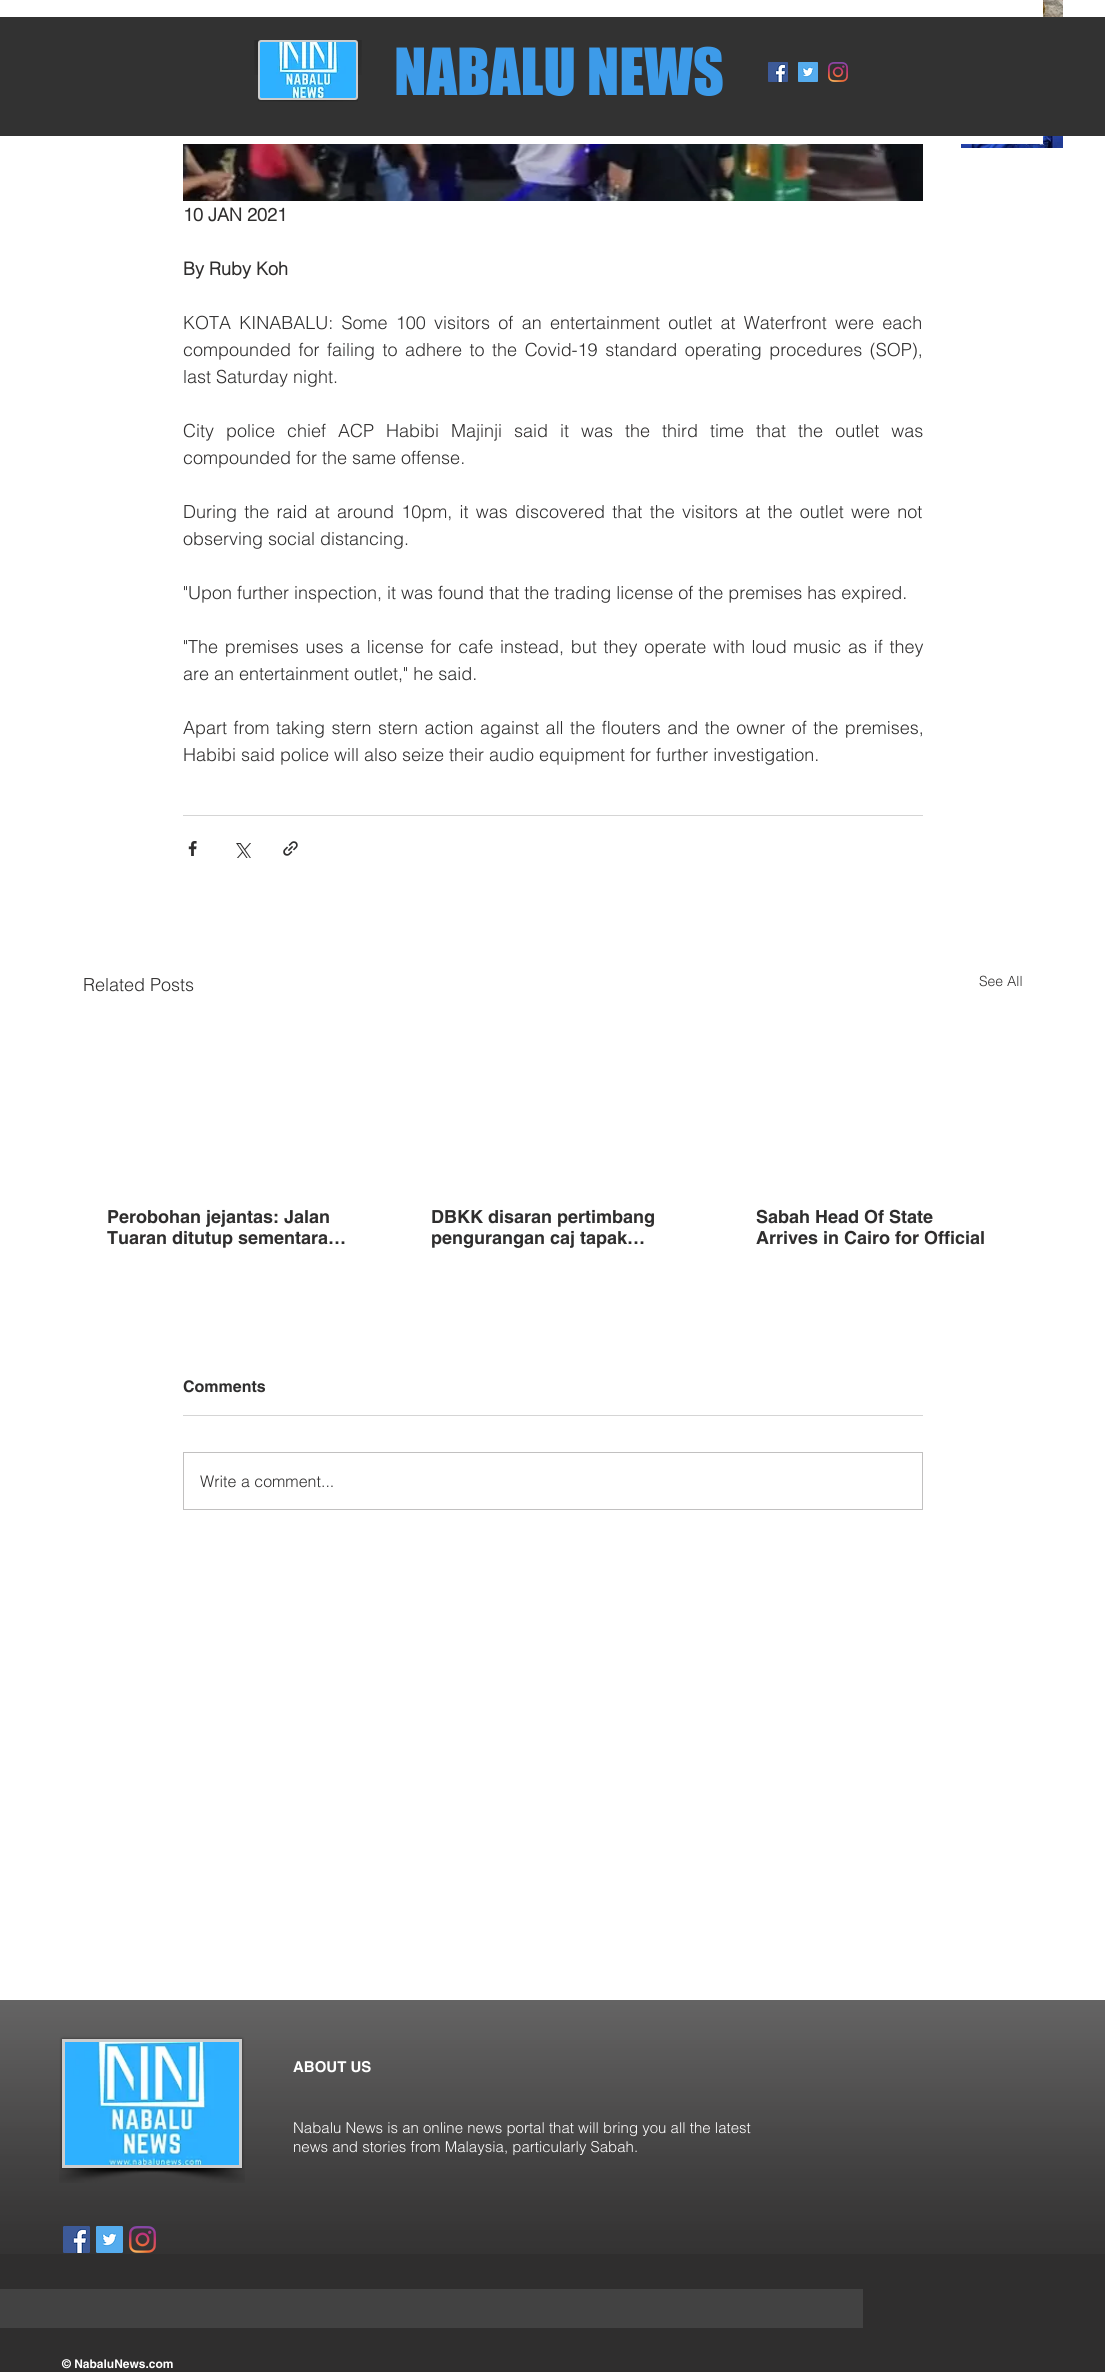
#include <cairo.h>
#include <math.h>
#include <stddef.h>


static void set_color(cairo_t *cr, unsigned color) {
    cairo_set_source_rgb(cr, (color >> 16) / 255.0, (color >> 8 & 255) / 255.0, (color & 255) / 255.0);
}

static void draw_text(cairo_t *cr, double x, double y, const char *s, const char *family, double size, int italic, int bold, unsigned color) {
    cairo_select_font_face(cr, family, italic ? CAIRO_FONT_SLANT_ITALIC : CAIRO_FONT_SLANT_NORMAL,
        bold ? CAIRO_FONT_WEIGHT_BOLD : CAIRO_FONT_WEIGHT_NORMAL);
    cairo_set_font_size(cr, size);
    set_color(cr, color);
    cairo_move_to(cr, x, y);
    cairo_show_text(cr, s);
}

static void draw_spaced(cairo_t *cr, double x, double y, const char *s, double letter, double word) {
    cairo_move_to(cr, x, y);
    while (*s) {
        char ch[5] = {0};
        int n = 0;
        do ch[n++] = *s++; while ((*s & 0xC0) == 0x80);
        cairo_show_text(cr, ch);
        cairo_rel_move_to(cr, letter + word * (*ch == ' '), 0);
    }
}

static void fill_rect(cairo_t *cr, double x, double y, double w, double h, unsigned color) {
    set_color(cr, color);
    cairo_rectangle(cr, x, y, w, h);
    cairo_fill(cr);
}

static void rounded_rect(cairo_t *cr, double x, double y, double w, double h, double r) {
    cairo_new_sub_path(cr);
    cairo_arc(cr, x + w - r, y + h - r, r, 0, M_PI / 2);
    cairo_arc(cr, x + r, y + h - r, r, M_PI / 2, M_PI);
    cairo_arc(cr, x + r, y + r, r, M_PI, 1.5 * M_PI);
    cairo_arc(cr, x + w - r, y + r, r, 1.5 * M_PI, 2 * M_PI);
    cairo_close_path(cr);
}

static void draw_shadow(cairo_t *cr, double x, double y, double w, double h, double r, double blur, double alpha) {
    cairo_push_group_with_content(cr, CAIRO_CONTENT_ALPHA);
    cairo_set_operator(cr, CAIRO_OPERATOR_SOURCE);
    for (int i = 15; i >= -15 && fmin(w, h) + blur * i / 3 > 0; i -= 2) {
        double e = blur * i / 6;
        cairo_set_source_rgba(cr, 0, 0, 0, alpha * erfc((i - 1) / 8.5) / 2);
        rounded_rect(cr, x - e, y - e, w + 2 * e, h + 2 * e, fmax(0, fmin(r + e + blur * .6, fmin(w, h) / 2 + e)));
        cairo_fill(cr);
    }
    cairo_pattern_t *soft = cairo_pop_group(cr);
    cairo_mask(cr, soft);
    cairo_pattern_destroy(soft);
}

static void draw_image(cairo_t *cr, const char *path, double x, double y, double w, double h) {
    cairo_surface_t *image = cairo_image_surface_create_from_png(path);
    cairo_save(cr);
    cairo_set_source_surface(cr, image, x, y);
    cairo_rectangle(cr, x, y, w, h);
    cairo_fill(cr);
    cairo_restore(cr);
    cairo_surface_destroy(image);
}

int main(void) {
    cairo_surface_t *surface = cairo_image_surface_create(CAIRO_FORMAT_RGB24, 1105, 2372);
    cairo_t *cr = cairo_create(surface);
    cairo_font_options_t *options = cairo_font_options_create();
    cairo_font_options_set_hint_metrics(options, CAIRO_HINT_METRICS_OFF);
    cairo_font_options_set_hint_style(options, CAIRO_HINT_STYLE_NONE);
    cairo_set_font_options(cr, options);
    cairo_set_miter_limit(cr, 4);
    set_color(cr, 0xFFFFFF);
    cairo_paint(cr);
    fill_rect(cr, 0, 17, 1105, 119, 0x323232);
    draw_image(cr, "assets/img1.png", 254, 40, 4, 35);
    set_color(cr, 0xCDCDCD);
    rounded_rect(cr, 259, 41, 98, 58, 2);
    cairo_fill_preserve(cr);
    cairo_stroke(cr);
    draw_image(cr, "assets/img2.png", 260, 42, 96, 56);
    draw_image(cr, "assets/img3.png", 258, 100, 100, 2);
    draw_image(cr, "assets/img4.png", 358, 40, 4, 35);
    draw_text(cr, 394, 95, "NABALU NEWS", "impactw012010", 60, 0, 0, 0x3D9BE9);
    draw_image(cr, "assets/img5.png", 768, 62, 20, 20);
    draw_image(cr, "assets/img6.png", 798, 62, 20, 20);
    draw_image(cr, "assets/img7.png", 828, 62, 20, 20);
    draw_image(cr, "assets/img9.png", 961, 136, 102, 12);
    fill_rect(cr, 961, 136, 82, 8, 0xFFFFFF);
    draw_image(cr, "assets/img8.png", 1043, 0, 20, 17);
    draw_image(cr, "assets/img10.png", 183, 144, 740, 57);
    draw_text(cr, 183, 221, "10 JAN 2021", "helvetica", 18, 0, 1, 0x2F2E2E);
    draw_text(cr, 183, 275, "By Ruby Koh", "helvetica", 18, 0, 1, 0x2F2E2E);
    cairo_select_font_face(cr, "helvetica Light", CAIRO_FONT_SLANT_NORMAL, CAIRO_FONT_WEIGHT_NORMAL);
    draw_spaced(cr, 183, 329, "KOTA KINABALU: Some 100 visitors of an entertainment outlet at Waterfront were each", 0, 3.25);
    draw_spaced(cr, 183, 356, "compounded for failing to adhere to the Covid-19 standard operating procedures (SOP),", 0, 2.5);
    draw_text(cr, 183, 383, "last Saturday night.", "helvetica Light", 18, 0, 0, 0x2F2E2E);
    draw_spaced(cr, 183, 437, "City police chief ACP Habibi Majinji said it was the third time that the outlet was", 0, 7);
    draw_text(cr, 183, 464, "compounded for the same offense.", "helvetica Light", 18, 0, 0, 0x2F2E2E);
    draw_spaced(cr, 183, 518, "During the raid at around 10pm, it was discovered that the visitors at the outlet were not", 0, 2.25);
    draw_text(cr, 183, 545, "observing social distancing.", "helvetica Light", 18, 0, 0, 0x2F2E2E);
    draw_text(cr, 183, 599, "\"Upon further inspection, it was found that the trading license of the premises has expired.", "helvetica Light", 18, 0, 0, 0x2F2E2E);
    draw_spaced(cr, 183, 653, "\"The premises uses a license for cafe instead, but they operate with loud music as if they", 0, 1.7);
    draw_text(cr, 183, 680, "are an entertainment outlet,\" he said.", "helvetica Light", 18, 0, 0, 0x2F2E2E);
    draw_spaced(cr, 183, 734, "Apart from taking stern stern action against all the flouters and the owner of the premises,", 0, 1.5);
    draw_text(cr, 183, 761, "Habibi said police will also seize their audio equipment for further investigation.", "helvetica Light", 18, 0, 0, 0x2F2E2E);
    fill_rect(cr, 183, 815, 740, 1, 0xD5D5D5);
    draw_image(cr, "assets/img11.png", 188, 841, 9, 15);
    draw_image(cr, "assets/img12.png", 236, 843, 15, 15);
    draw_image(cr, "assets/img13.png", 283, 841, 15, 15);
    draw_text(cr, 83, 991, "Related Posts", "helvetica Light", 18, 0, 0, 0x2F2E2E);
    draw_text(cr, 979, 986, "See All", "helvetica Light", 14, 0, 0, 0x2F2E2E);
    draw_text(cr, 107, 1223, "Perobohan jejantas: Jalan", "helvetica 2", 18, 0, 1, 0x2F2E2E);
    cairo_save(cr);
    cairo_rectangle(cr, 107, 1206, 242, 42);
    cairo_clip(cr);
    draw_text(cr, 107, 1244, "Tuaran ditutup sementara…", "helvetica 2", 18, 0, 1, 0x2F2E2E);
    cairo_restore(cr);
    draw_text(cr, 431, 1223, "DBKK disaran pertimbang", "helvetica 2", 18, 0, 1, 0x2F2E2E);
    draw_text(cr, 431, 1244, "pengurangan caj tapak…", "helvetica 2", 18, 0, 1, 0x2F2E2E);
    draw_text(cr, 756, 1223, "Sabah Head Of State", "helvetica 2", 18, 0, 1, 0x2F2E2E);
    draw_text(cr, 756, 1244, "Arrives in Cairo for Official", "helvetica 2", 18, 0, 1, 0x2F2E2E);
    draw_text(cr, 183, 1392, "Comments", "helvetica 2", 16, 0, 1, 0x2F2E2E);
    fill_rect(cr, 183, 1415, 740, 1, 0xD5D5D5);
    cairo_rectangle(cr, 183.5, 1452.5, 739, 57);
    set_color(cr, 0xC1C0C0);
    cairo_set_line_width(cr, 1);
    cairo_stroke(cr);
    draw_text(cr, 200, 1487, "Write a comment...", "helvetica Light", 16, 0, 0, 0x2F2E2E);
    fill_rect(cr, 0, 2000, 1105, 372, 0x2F2E2E);
    draw_image(cr, "assets/img14.png", 0, 2000, 1105, 254);
    set_color(cr, 0x000000);
    draw_shadow(cr, 62, 2039, 180, 129, 0, 1.5, 0.5);
    fill_rect(cr, 62, 2039, 180, 129, 0xCDCDCD);
    draw_image(cr, "assets/img15.png", 65, 2042, 174, 123);
    draw_image(cr, "assets/img16.png", 59, 2168, 131, 15);
    draw_image(cr, "assets/img17.png", 137, 2168, 108, 15);
    draw_text(cr, 293, 2072, "ABOUT US", "helvetica 2", 15, 0, 1, 0xFFFFFF);
    draw_text(cr, 293, 2133, "Nabalu News is an online news portal that will bring you all the latest", "helvetica Light", 15, 0, 0, 0xFFFFFF);
    draw_text(cr, 293, 2152, "news and stories from Malaysia, particularly Sabah.", "helvetica Light", 15, 0, 0, 0xFFFFFF);
    draw_image(cr, "assets/img18.png", 63, 2226, 27, 27);
    draw_image(cr, "assets/img19.png", 96, 2226, 27, 27);
    draw_image(cr, "assets/img20.png", 129, 2226, 27, 27);
    fill_rect(cr, 0, 2289, 863, 39, 0x424242);
    draw_text(cr, 62, 2368, "© NabaluNews.com", "helvetica 2", 12, 0, 1, 0xFFFFFF);
    cairo_surface_write_to_png(surface, "output.png");
    cairo_font_options_destroy(options);
    cairo_destroy(cr);
    cairo_surface_destroy(surface);
    return 0;
}
